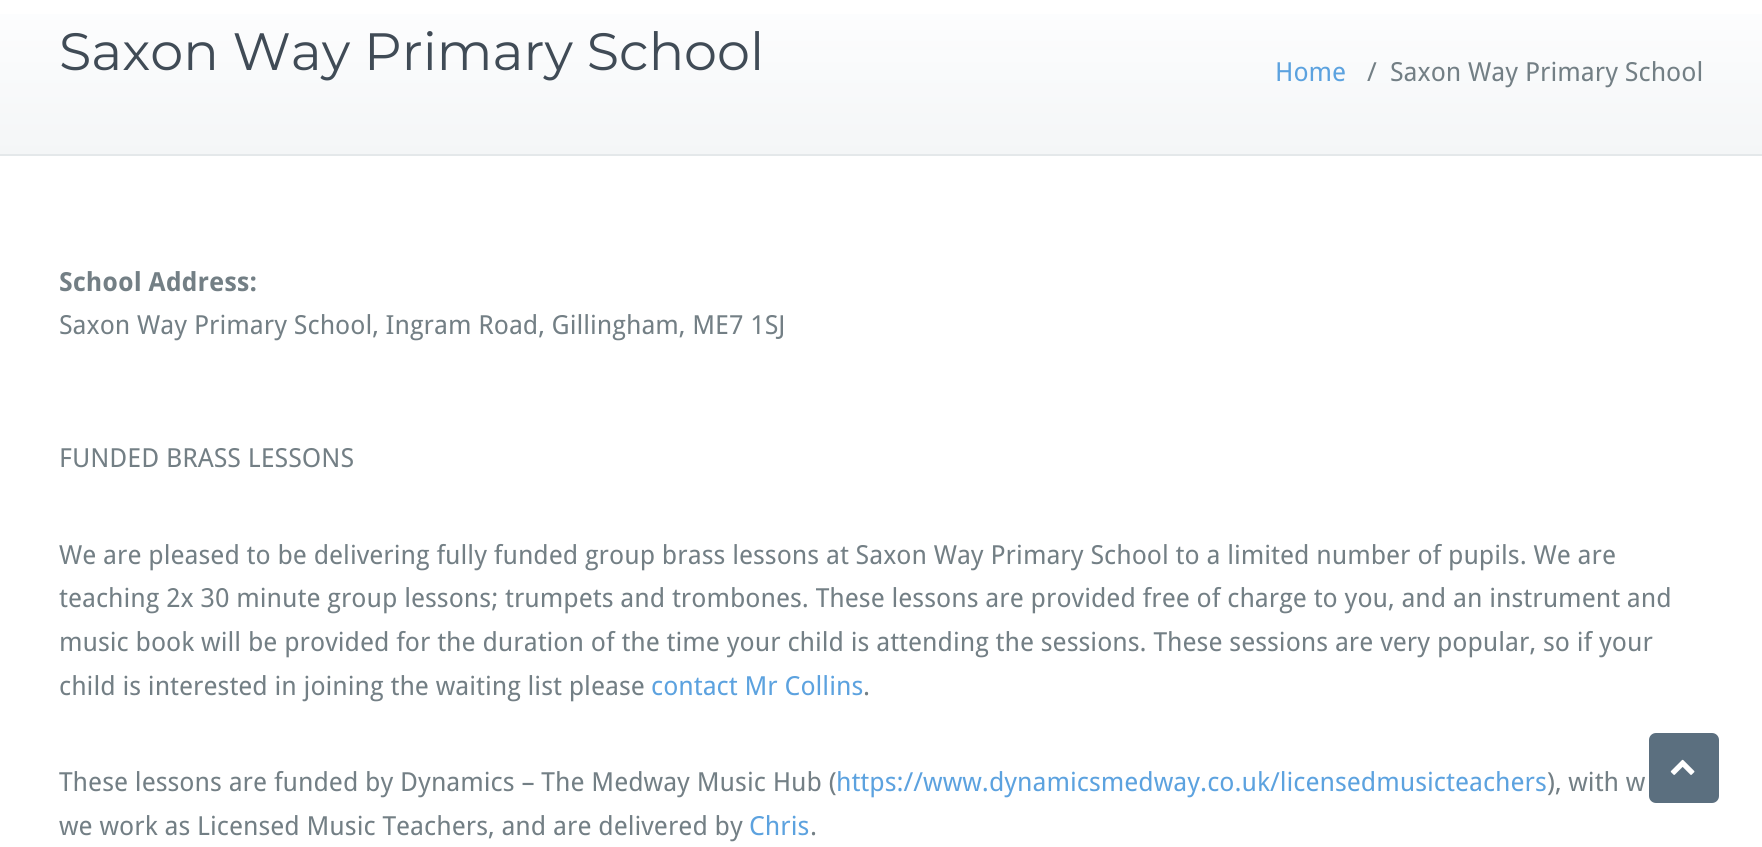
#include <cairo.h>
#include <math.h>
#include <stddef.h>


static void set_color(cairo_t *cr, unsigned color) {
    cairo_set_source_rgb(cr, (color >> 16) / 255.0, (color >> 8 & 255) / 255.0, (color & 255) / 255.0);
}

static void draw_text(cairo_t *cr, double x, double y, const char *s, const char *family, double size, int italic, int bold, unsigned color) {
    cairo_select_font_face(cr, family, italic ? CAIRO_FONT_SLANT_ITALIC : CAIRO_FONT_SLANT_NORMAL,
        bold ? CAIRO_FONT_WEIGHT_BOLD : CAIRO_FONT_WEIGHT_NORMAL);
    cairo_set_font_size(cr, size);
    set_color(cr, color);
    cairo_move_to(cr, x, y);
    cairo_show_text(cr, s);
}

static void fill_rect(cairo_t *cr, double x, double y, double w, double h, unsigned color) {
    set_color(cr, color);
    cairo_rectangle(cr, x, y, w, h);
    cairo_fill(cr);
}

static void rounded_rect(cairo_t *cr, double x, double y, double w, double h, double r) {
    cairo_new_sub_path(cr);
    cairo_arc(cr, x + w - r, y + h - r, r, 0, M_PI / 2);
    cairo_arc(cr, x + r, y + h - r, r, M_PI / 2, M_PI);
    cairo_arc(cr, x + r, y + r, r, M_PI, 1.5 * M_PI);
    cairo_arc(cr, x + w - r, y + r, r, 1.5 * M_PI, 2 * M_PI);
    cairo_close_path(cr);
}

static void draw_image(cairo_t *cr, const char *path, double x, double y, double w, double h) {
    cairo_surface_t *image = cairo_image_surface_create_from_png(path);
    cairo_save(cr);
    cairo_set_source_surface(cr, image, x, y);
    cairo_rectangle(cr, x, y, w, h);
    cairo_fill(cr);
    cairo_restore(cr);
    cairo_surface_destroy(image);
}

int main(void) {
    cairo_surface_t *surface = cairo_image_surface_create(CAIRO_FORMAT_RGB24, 1762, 847);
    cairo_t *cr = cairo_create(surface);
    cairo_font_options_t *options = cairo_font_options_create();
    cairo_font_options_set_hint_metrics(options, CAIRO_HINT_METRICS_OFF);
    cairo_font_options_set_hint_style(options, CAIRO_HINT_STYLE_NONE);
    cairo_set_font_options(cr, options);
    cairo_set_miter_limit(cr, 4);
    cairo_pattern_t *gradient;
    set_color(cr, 0xFFFFFF);
    cairo_paint(cr);
    gradient = cairo_pattern_create_linear(881, -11, 881, 154);
    cairo_pattern_add_color_stop_rgba(gradient, 0, 0.996, 0.996, 1, 1);
    cairo_pattern_add_color_stop_rgba(gradient, 1, 0.957, 0.965, 0.969, 1);
    cairo_set_source(cr, gradient);
    cairo_pattern_destroy(gradient);
    cairo_rectangle(cr, 0, 14, 1762, 140);
    cairo_fill(cr);
    fill_rect(cr, 0, 154, 1762, 2, 0xE4E8EA);
    draw_text(cr, 59, 70, "Saxon Way Primary School", "Montserrat", 52.5, 0, 0, 0x404B56);
    draw_text(cr, 1275, 81, "Home", "Droid Sans", 26.25, 0, 0, 0x5CA2DF);
    draw_text(cr, 1367, 81, "/", "Droid Sans", 26.25, 0, 0, 0x737F85);
    draw_text(cr, 1390, 81, "Saxon Way Primary School", "Droid Sans", 26.25, 0, 0, 0x737F85);
    draw_text(cr, 59, 291, "School Address:", "Droid Sans", 26.25, 0, 1, 0x737F85);
    draw_text(cr, 59, 334, "Saxon Way Primary School, Ingram Road, Gillingham, ME7 1SJ", "Droid Sans", 26.25, 0, 0, 0x737F85);
    draw_text(cr, 59, 467, "FUNDED BRASS LESSONS", "Droid Sans", 26.25, 0, 0, 0x737F85);
    draw_text(cr, 59, 564, "We are pleased to be delivering fully funded group brass lessons at Saxon Way Primary School to a limited number of pupils. We are", "Droid Sans", 26.25, 0, 0, 0x737F85);
    draw_text(cr, 59, 607, "teaching 2x 30 minute group lessons; trumpets and trombones. These lessons are provided free of charge to you, and an instrument and", "Droid Sans", 26.25, 0, 0, 0x737F85);
    draw_text(cr, 59, 651, "music book will be provided for the duration of the time your child is attending the sessions. These sessions are very popular, so if your", "Droid Sans", 26.25, 0, 0, 0x737F85);
    draw_text(cr, 59, 695, "child is interested in joining the waiting list please", "Droid Sans", 26.25, 0, 0, 0x737F85);
    draw_text(cr, 651, 695, "contact Mr Collins", "Droid Sans", 26.25, 0, 0, 0x5CA2DF);
    draw_text(cr, 863, 695, ".", "Droid Sans", 26.25, 0, 0, 0x737F85);
    draw_text(cr, 59, 791, "These lessons are funded by Dynamics – The Medway Music Hub (", "Droid Sans", 26.25, 0, 0, 0x737F85);
    draw_text(cr, 836, 791, "https://www.dynamicsmedway.co.uk/licensedmusicteachers", "Droid Sans", 26.25, 0, 0, 0x5CA2DF);
    draw_text(cr, 1547, 791, "), with w", "Droid Sans", 26.25, 0, 0, 0x737F85);
    draw_text(cr, 59, 835, "we work as Licensed Music Teachers, and are delivered by", "Droid Sans", 26.25, 0, 0, 0x737F85);
    draw_text(cr, 749, 835, "Chris", "Droid Sans", 26.25, 0, 0, 0x5CA2DF);
    draw_text(cr, 810, 835, ".", "Droid Sans", 26.25, 0, 0, 0x737F85);
    set_color(cr, 0x5B6F7F);
    rounded_rect(cr, 1649, 733, 70, 70, 7);
    cairo_fill(cr);
    draw_image(cr, "assets/img1.png", 1670, 759, 25, 16);
    cairo_surface_write_to_png(surface, "output.png");
    cairo_font_options_destroy(options);
    cairo_destroy(cr);
    cairo_surface_destroy(surface);
    return 0;
}
